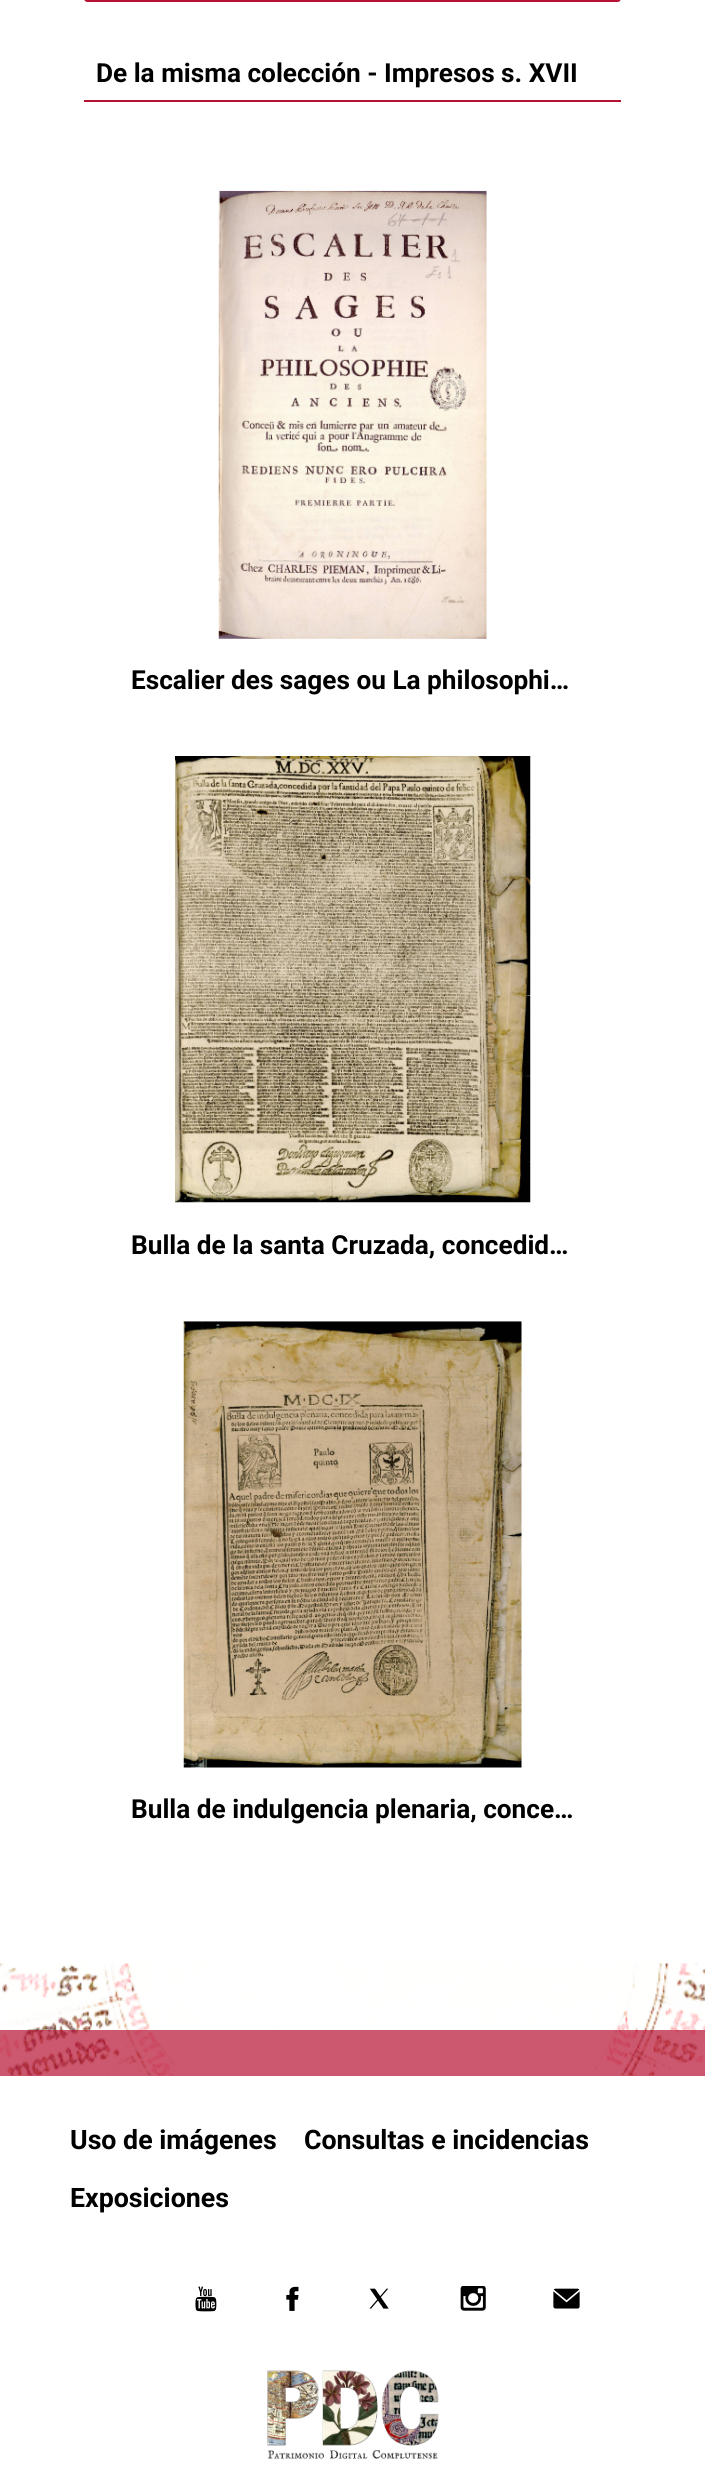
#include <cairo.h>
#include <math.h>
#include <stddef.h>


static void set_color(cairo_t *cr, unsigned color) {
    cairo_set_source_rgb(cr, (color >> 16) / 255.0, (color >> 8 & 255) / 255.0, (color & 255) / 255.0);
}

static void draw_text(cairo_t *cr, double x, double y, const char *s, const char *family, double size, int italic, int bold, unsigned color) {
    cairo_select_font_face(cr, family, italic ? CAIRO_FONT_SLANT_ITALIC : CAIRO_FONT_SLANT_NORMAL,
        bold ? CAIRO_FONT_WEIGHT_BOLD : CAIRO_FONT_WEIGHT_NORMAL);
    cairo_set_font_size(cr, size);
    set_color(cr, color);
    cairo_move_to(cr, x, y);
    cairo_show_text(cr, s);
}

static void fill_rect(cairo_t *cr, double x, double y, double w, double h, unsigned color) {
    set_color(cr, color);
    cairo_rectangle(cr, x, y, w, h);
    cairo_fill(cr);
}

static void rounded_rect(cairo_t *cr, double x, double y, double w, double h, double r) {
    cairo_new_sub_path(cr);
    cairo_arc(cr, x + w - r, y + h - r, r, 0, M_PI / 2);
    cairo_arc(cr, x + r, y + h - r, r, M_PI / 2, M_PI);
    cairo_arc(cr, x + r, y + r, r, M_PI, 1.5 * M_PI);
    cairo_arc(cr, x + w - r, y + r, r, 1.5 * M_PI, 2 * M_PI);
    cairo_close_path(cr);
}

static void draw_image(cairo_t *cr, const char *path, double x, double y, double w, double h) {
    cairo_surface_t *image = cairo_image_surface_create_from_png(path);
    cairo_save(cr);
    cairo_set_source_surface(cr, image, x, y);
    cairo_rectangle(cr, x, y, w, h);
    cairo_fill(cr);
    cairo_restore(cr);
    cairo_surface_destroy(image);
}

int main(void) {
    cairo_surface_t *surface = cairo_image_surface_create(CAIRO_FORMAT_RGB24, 705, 2484);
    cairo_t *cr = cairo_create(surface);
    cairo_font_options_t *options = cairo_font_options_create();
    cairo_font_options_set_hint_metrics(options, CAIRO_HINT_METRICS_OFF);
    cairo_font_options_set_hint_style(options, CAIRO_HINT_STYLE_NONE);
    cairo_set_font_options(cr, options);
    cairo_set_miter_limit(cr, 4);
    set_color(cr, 0xFFFFFF);
    cairo_paint(cr);
    set_color(cr, 0xB71234);
    rounded_rect(cr, 84, -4, 537, 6, 3.5);
    cairo_fill(cr);
    fill_rect(cr, 84, 100, 537, 2, 0xB71234);
    draw_text(cr, 96, 82, "De la misma colección - Impresos s. XVII", "Roboto", 26.2, 0, 1, 0x000000);
    draw_image(cr, "assets/img1.png", 218, 190, 269, 449);
    draw_text(cr, 131, 689, "Escalier des sages ou La philosophi…", "Roboto", 26.2, 0, 1, 0x000000);
    draw_image(cr, "assets/img2.png", 175, 756, 356, 447);
    draw_text(cr, 131, 1254, "Bulla de la santa Cruzada, concedid…", "Roboto", 26.2, 0, 1, 0x000000);
    draw_image(cr, "assets/img3.png", 183, 1321, 339, 447);
    draw_text(cr, 131, 1818, "Bulla de indulgencia plenaria, conce…", "Roboto", 26.2, 0, 1, 0x000000);
    draw_image(cr, "assets/img4.png", 0, 1963, 705, 113);
    cairo_set_source_rgba(cr, 0.718, 0.071, 0.204, 0.7);
    cairo_rectangle(cr, 0, 2030, 705, 46);
    cairo_fill(cr);
    draw_text(cr, 70, 2149, "Uso de imágenes", "Roboto", 26.75, 0, 1, 0x000000);
    draw_text(cr, 304, 2149, "Consultas e incidencias", "Roboto", 26.75, 0, 1, 0x000000);
    draw_text(cr, 70, 2207, "Exposiciones", "Roboto", 26.75, 0, 1, 0x000000);
    draw_image(cr, "assets/img5.png", 195, 2286, 22, 26);
    draw_image(cr, "assets/img6.png", 286, 2286, 13, 25);
    draw_image(cr, "assets/img7.png", 369, 2288, 20, 21);
    draw_image(cr, "assets/img8.png", 460, 2286, 26, 25);
    draw_image(cr, "assets/img9.png", 553, 2288, 27, 21);
    draw_image(cr, "assets/img10.png", 267, 2370, 172, 89);
    cairo_surface_write_to_png(surface, "output.png");
    cairo_font_options_destroy(options);
    cairo_destroy(cr);
    cairo_surface_destroy(surface);
    return 0;
}
